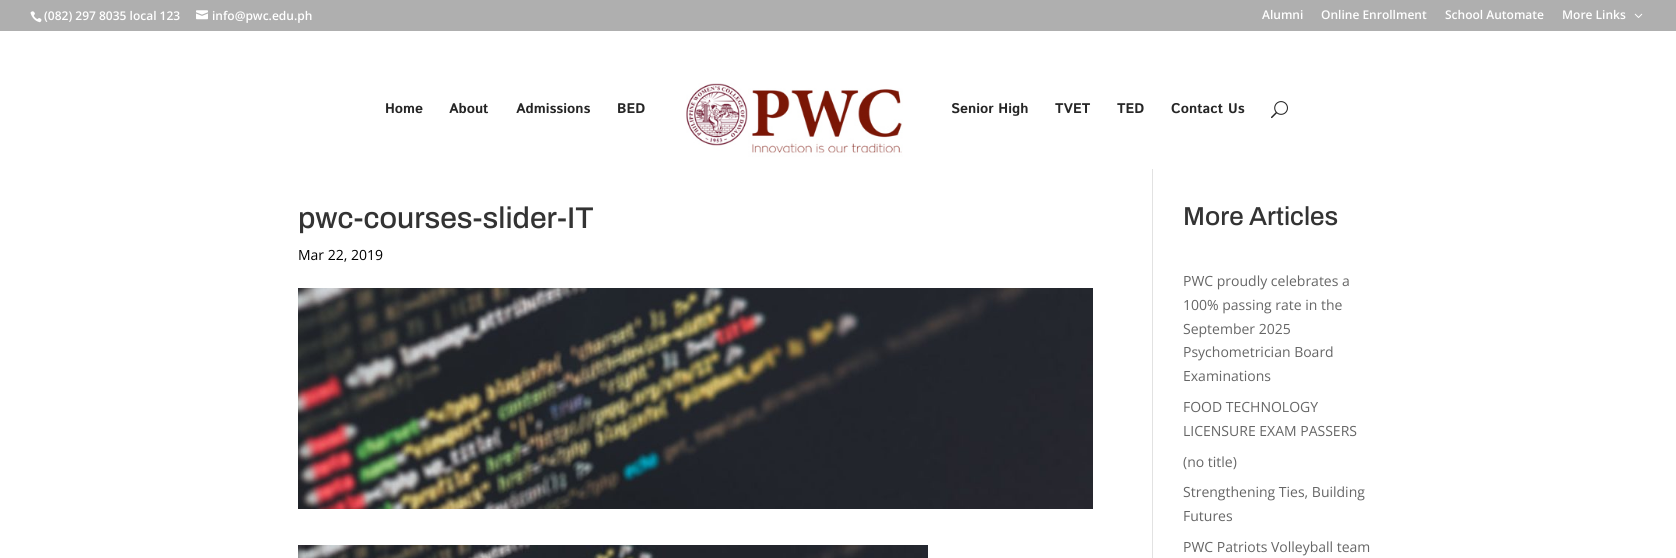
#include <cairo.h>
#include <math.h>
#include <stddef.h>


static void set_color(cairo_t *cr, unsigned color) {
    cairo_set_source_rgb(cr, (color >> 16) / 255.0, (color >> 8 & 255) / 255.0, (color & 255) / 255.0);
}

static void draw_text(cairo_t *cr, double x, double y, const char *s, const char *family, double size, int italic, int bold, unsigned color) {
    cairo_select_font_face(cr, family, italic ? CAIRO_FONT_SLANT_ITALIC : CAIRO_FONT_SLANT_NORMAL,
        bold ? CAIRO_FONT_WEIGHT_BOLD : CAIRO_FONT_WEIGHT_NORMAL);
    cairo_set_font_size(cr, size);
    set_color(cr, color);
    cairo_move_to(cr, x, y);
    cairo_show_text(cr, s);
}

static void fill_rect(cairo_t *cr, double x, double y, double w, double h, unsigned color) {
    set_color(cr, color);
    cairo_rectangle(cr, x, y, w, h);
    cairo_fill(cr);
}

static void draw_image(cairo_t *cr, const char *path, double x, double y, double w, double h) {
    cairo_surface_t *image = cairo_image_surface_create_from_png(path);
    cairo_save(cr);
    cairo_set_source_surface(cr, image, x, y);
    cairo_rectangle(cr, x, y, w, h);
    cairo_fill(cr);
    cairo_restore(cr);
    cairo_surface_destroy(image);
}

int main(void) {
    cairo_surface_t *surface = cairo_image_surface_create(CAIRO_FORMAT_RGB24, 1676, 558);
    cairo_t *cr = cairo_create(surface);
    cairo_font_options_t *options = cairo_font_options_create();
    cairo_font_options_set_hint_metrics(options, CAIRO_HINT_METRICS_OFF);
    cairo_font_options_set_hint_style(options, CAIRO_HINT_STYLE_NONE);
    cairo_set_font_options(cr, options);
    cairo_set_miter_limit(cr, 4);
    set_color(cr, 0xFFFFFF);
    cairo_paint(cr);
    fill_rect(cr, 0, 0, 1676, 31, 0xAFAFAF);
    draw_image(cr, "assets/img1.png", 30, 11, 12, 12);
    draw_text(cr, 44, 20, "(082) 297 8035 local 123", "Open Sans SemiBold", 12, 0, 0, 0xFFFFFF);
    draw_image(cr, "assets/img2.png", 196, 10, 12, 10);
    draw_text(cr, 212, 20, "info@pwc.edu.ph", "Open Sans SemiBold", 12, 0, 0, 0xFFFFFF);
    draw_text(cr, 1262, 19, "Alumni", "Open Sans SemiBold", 12, 0, 0, 0xFFFFFF);
    draw_text(cr, 1321, 19, "Online Enrollment", "Open Sans SemiBold", 12, 0, 0, 0xFFFFFF);
    draw_text(cr, 1445, 19, "School Automate", "Open Sans SemiBold", 12, 0, 0, 0xFFFFFF);
    draw_text(cr, 1562, 19, "More Links", "Open Sans SemiBold", 12, 0, 0, 0xFFFFFF);
    draw_image(cr, "assets/img3.png", 1634, 13, 9, 5);
    draw_text(cr, 385, 113, "Home", "Istok Web", 14, 0, 1, 0x262626);
    draw_text(cr, 449, 113, "About", "Istok Web", 14, 0, 1, 0x262626);
    draw_text(cr, 516, 113, "Admissions", "Istok Web", 14, 0, 1, 0x262626);
    draw_text(cr, 617, 113, "BED", "Istok Web", 14, 0, 1, 0x262626);
    draw_image(cr, "assets/img4.png", 686, 83, 217, 74);
    draw_text(cr, 951, 113, "Senior High", "Istok Web", 14, 0, 1, 0x262626);
    draw_text(cr, 1055, 113, "TVET", "Istok Web", 14, 0, 1, 0x262626);
    draw_text(cr, 1117, 113, "TED", "Istok Web", 14, 0, 1, 0x262626);
    draw_text(cr, 1171, 113, "Contact Us", "Istok Web", 14, 0, 1, 0x262626);
    draw_image(cr, "assets/img5.png", 1271, 101, 17, 18);
    fill_rect(cr, 1152, 169, 1, 389, 0xE2E2E2);
    draw_text(cr, 298, 228, "pwc-courses-slider-IT", "Archivo Medium", 30, 0, 0, 0x333333);
    draw_text(cr, 298, 260, "Mar 22, 2019", "Open Sans", 14, 0, 0, 0x000000);
    draw_image(cr, "assets/img6.png", 298, 288, 795, 221);
    draw_image(cr, "assets/img7.png", 298, 545, 630, 13);
    draw_text(cr, 1183, 225, "More Articles", "Archivo Medium", 26, 0, 0, 0x333333);
    draw_text(cr, 1183, 286, "PWC proudly celebrates a", "Open Sans", 14, 0, 0, 0x666666);
    draw_text(cr, 1183, 310, "100% passing rate in the", "Open Sans", 14, 0, 0, 0x666666);
    draw_text(cr, 1183, 334, "September 2025", "Open Sans", 14, 0, 0, 0x666666);
    draw_text(cr, 1183, 357, "Psychometrician Board", "Open Sans", 14, 0, 0, 0x666666);
    draw_text(cr, 1183, 381, "Examinations", "Open Sans", 14, 0, 0, 0x666666);
    draw_text(cr, 1183, 412, "FOOD TECHNOLOGY", "Open Sans", 14, 0, 0, 0x666666);
    draw_text(cr, 1183, 436, "LICENSURE EXAM PASSERS", "Open Sans", 14, 0, 0, 0x666666);
    draw_text(cr, 1183, 467, "(no title)", "Open Sans", 14, 0, 0, 0x666666);
    draw_text(cr, 1183, 497, "Strengthening Ties, Building", "Open Sans", 14, 0, 0, 0x666666);
    draw_text(cr, 1183, 521, "Futures", "Open Sans", 14, 0, 0, 0x666666);
    draw_text(cr, 1183, 552, "PWC Patriots Volleyball team", "Open Sans", 14, 0, 0, 0x666666);
    cairo_surface_write_to_png(surface, "output.png");
    cairo_font_options_destroy(options);
    cairo_destroy(cr);
    cairo_surface_destroy(surface);
    return 0;
}
